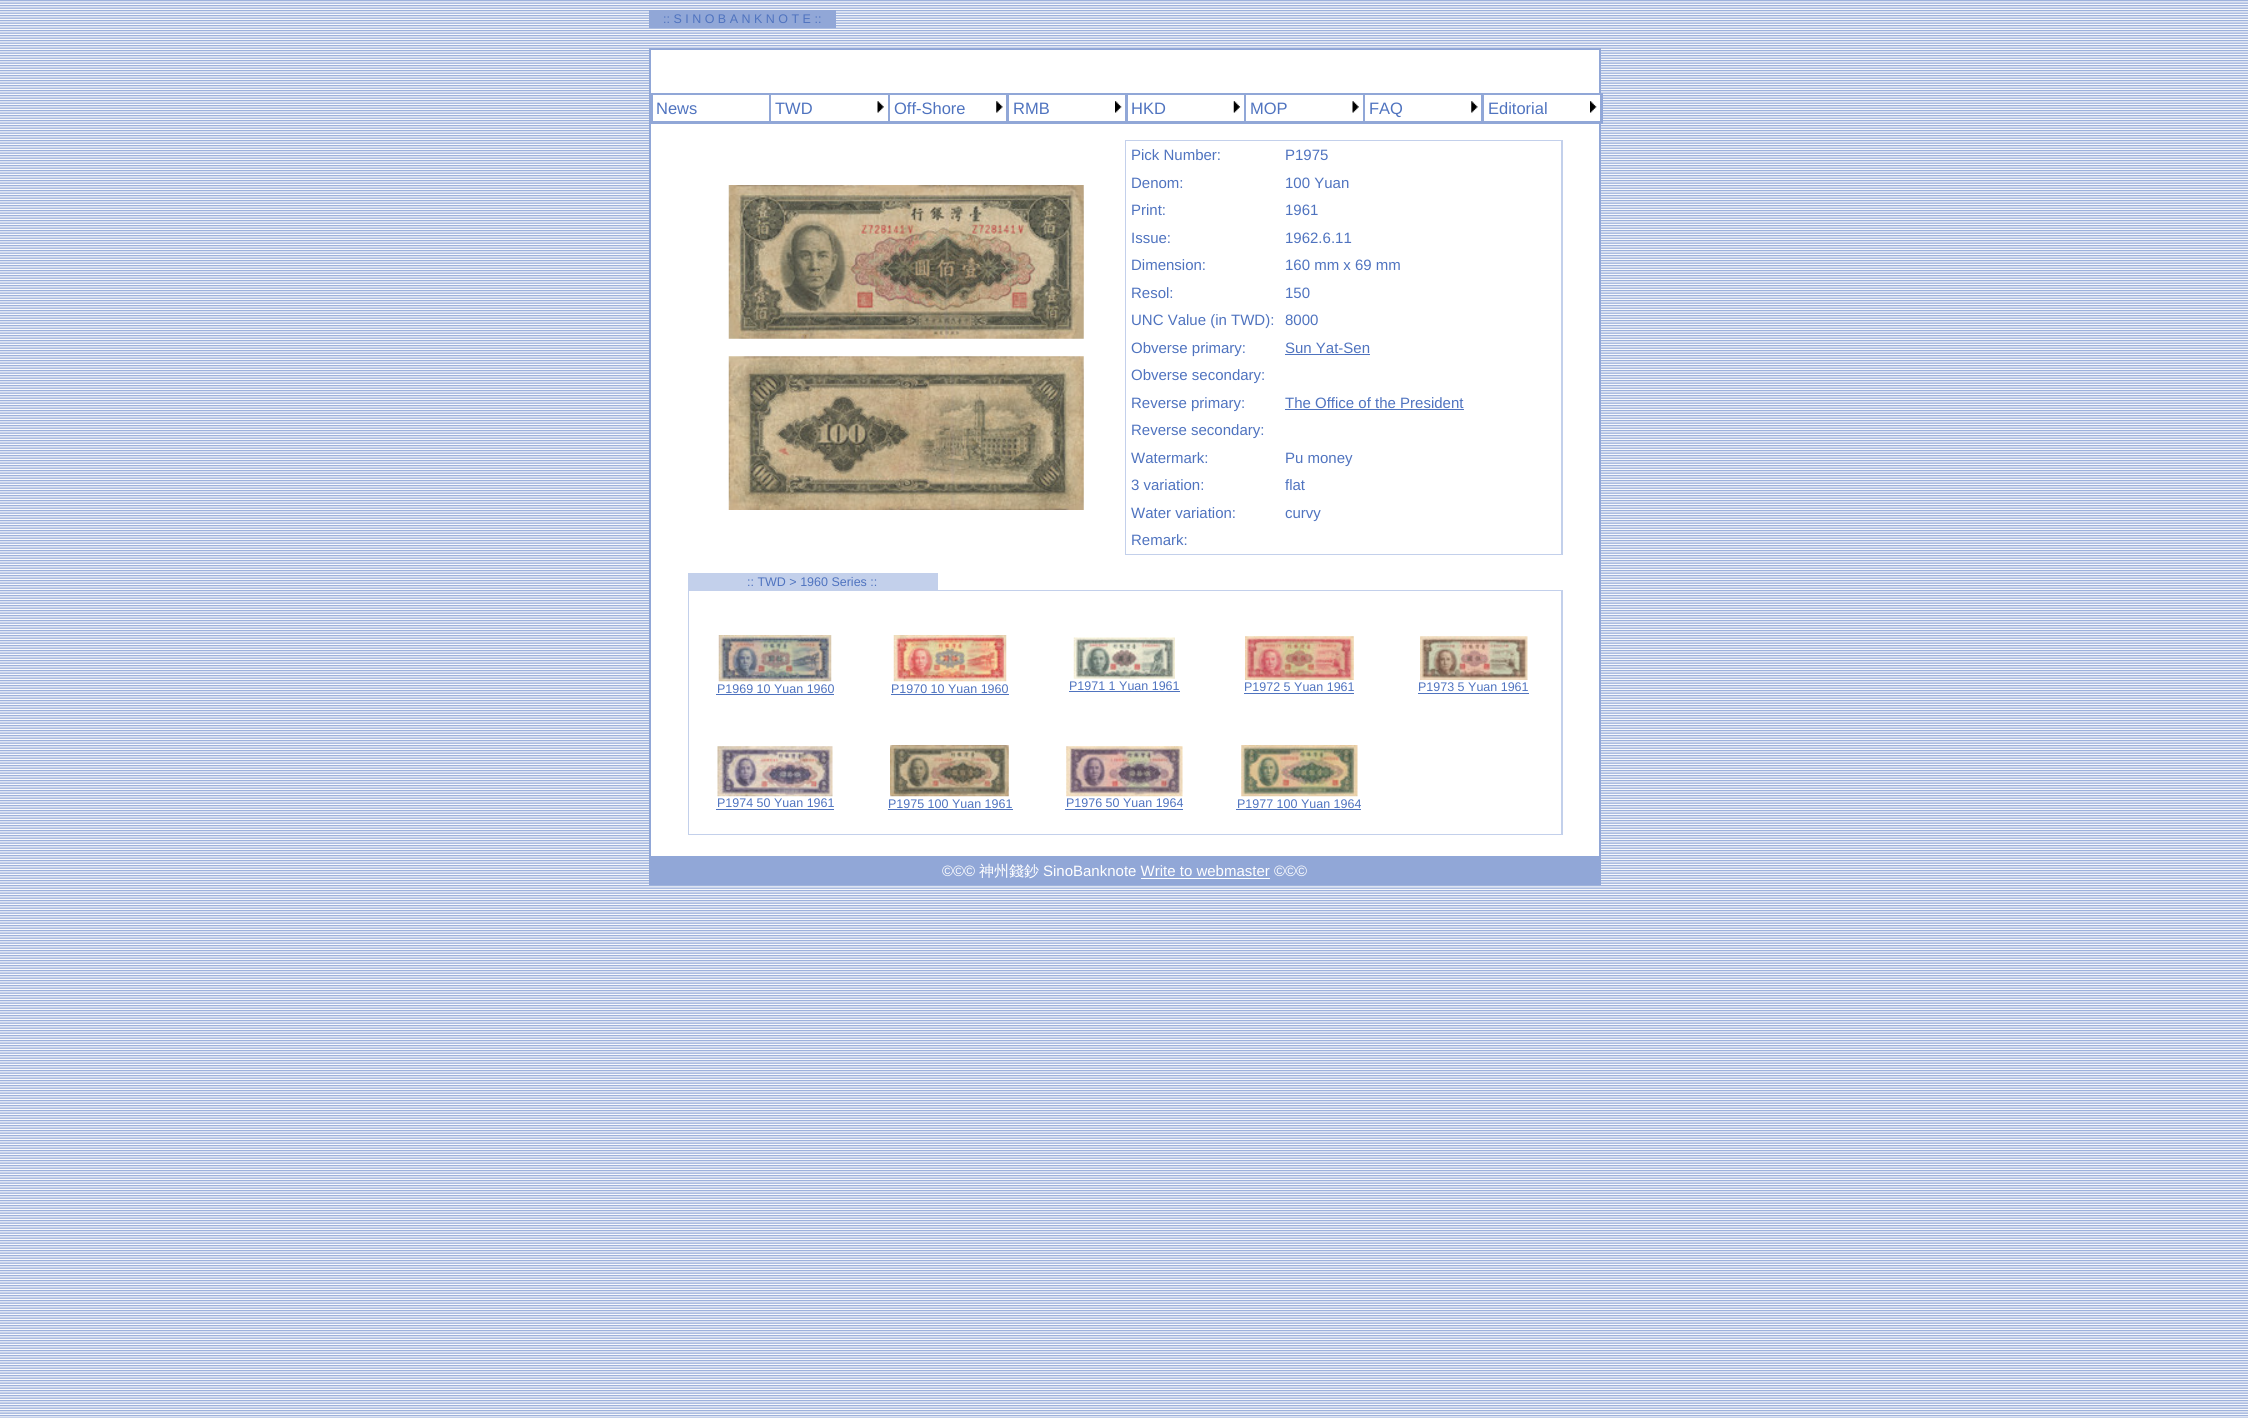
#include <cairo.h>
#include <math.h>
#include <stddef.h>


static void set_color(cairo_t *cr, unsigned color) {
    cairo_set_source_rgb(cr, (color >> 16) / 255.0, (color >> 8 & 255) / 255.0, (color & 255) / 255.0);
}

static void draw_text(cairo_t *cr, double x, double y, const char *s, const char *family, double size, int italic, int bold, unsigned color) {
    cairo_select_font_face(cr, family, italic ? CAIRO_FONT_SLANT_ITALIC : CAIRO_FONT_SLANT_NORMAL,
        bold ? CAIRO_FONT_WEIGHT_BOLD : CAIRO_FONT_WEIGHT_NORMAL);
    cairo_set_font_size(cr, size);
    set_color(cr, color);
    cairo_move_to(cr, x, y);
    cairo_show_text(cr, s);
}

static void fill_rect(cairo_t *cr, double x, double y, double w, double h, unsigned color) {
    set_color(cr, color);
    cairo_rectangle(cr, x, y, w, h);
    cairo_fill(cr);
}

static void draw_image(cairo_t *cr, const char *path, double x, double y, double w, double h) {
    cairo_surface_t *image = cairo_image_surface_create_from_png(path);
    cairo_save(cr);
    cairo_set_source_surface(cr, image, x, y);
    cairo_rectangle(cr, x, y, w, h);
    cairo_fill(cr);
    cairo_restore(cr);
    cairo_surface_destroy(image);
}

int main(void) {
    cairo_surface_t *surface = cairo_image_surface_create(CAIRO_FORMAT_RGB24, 2248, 1418);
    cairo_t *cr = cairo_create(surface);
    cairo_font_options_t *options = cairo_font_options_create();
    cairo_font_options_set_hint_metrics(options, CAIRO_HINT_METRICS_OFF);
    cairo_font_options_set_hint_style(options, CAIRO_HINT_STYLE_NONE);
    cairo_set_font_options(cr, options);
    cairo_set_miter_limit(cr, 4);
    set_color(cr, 0xFFFFFF);
    cairo_paint(cr);
    draw_image(cr, "assets/img1.png", 0, 0, 2248, 1418);
    fill_rect(cr, 649, 10, 187, 18, 0x91A7D7);
    draw_text(cr, 663, 23, ":: S I N O B A N K N O T E ::", "Liberation Sans", 12.5, 0, 0, 0x4F73BF);
    fill_rect(cr, 649, 48, 952, 837, 0x91A7D7);
    fill_rect(cr, 651, 50, 948, 806, 0xFFFFFF);
    cairo_rectangle(cr, 651.5, 94.5, 950, 28);
    set_color(cr, 0x91A7D7);
    cairo_set_line_width(cr, 3);
    cairo_stroke(cr);
    fill_rect(cr, 653, 95, 116, 1, 0xFFFFFF);
    fill_rect(cr, 769, 95, 2, 26, 0x91A7D7);
    draw_text(cr, 656, 114, "News", "Liberation Sans", 16.5, 0, 0, 0x4F73BF);
    fill_rect(cr, 771, 95, 117, 1, 0xFFFFFF);
    fill_rect(cr, 888, 95, 2, 26, 0x91A7D7);
    draw_text(cr, 775, 114, "TWD", "Liberation Sans", 16.5, 0, 0, 0x4F73BF);
    draw_image(cr, "assets/img2.png", 877, 101, 7, 12);
    fill_rect(cr, 890, 95, 116, 1, 0xFFFFFF);
    fill_rect(cr, 1006, 95, 3, 26, 0x91A7D7);
    draw_text(cr, 894, 114, "Off-Shore", "Liberation Sans", 16.5, 0, 0, 0x4F73BF);
    draw_image(cr, "assets/img3.png", 996, 101, 7, 12);
    fill_rect(cr, 1009, 95, 116, 1, 0xFFFFFF);
    fill_rect(cr, 1125, 95, 3, 26, 0x91A7D7);
    draw_text(cr, 1013, 114, "RMB", "Liberation Sans", 16.5, 0, 0, 0x4F73BF);
    draw_image(cr, "assets/img4.png", 1115, 101, 7, 12);
    fill_rect(cr, 1128, 95, 116, 1, 0xFFFFFF);
    fill_rect(cr, 1244, 95, 2, 26, 0x91A7D7);
    draw_text(cr, 1131, 114, "HKD", "Liberation Sans", 16.5, 0, 0, 0x4F73BF);
    draw_image(cr, "assets/img5.png", 1233, 101, 7, 12);
    fill_rect(cr, 1246, 95, 117, 1, 0xFFFFFF);
    fill_rect(cr, 1363, 95, 2, 26, 0x91A7D7);
    draw_text(cr, 1250, 114, "MOP", "Liberation Sans", 16.5, 0, 0, 0x4F73BF);
    draw_image(cr, "assets/img2.png", 1352, 101, 7, 12);
    fill_rect(cr, 1365, 95, 116, 1, 0xFFFFFF);
    fill_rect(cr, 1481, 95, 3, 26, 0x91A7D7);
    draw_text(cr, 1369, 114, "FAQ", "Liberation Sans", 16.5, 0, 0, 0x4F73BF);
    draw_image(cr, "assets/img3.png", 1471, 101, 7, 12);
    fill_rect(cr, 1484, 95, 116, 26, 0xFFFFFF);
    draw_text(cr, 1488, 114, "Editorial", "Liberation Sans", 16.5, 0, 0, 0x4F73BF);
    draw_image(cr, "assets/img6.png", 1590, 101, 7, 12);
    draw_image(cr, "assets/img7.png", 728, 185, 356, 154);
    draw_image(cr, "assets/img8.png", 728, 356, 356, 154);
    fill_rect(cr, 1125, 140, 438, 415, 0xC3D0EB);
    fill_rect(cr, 1126, 141, 435, 413, 0xFFFFFF);
    draw_text(cr, 1131, 160, "Pick Number:", "Liberation Sans", 15, 0, 0, 0x4F73BF);
    draw_text(cr, 1285, 160, "P1975", "Liberation Sans", 15, 0, 0, 0x4F73BF);
    draw_text(cr, 1131, 188, "Denom:", "Liberation Sans", 15, 0, 0, 0x4F73BF);
    draw_text(cr, 1285, 188, "100 Yuan", "Liberation Sans", 15, 0, 0, 0x4F73BF);
    draw_text(cr, 1131, 215, "Print:", "Liberation Sans", 15, 0, 0, 0x4F73BF);
    draw_text(cr, 1285, 215, "1961", "Liberation Sans", 15, 0, 0, 0x4F73BF);
    draw_text(cr, 1131, 243, "Issue:", "Liberation Sans", 15, 0, 0, 0x4F73BF);
    draw_text(cr, 1285, 243, "1962.6.11", "Liberation Sans", 15, 0, 0, 0x4F73BF);
    draw_text(cr, 1131, 270, "Dimension:", "Liberation Sans", 15, 0, 0, 0x4F73BF);
    draw_text(cr, 1285, 270, "160 mm x 69 mm", "Liberation Sans", 15, 0, 0, 0x4F73BF);
    draw_text(cr, 1131, 298, "Resol:", "Liberation Sans", 15, 0, 0, 0x4F73BF);
    draw_text(cr, 1285, 298, "150", "Liberation Sans", 15, 0, 0, 0x4F73BF);
    draw_text(cr, 1131, 325, "UNC Value (in TWD):", "Liberation Sans", 15, 0, 0, 0x4F73BF);
    draw_text(cr, 1285, 325, "8000", "Liberation Sans", 15, 0, 0, 0x4F73BF);
    draw_text(cr, 1131, 353, "Obverse primary:", "Liberation Sans", 15, 0, 0, 0x4F73BF);
    draw_text(cr, 1285, 353, "Sun Yat-Sen", "Liberation Sans", 15, 0, 0, 0x4F73BF);
    fill_rect(cr, 1285, 354, 85, 1, 0x4F73BF);
    draw_text(cr, 1131, 380, "Obverse secondary:", "Liberation Sans", 15, 0, 0, 0x4F73BF);
    draw_text(cr, 1131, 408, "Reverse primary:", "Liberation Sans", 15, 0, 0, 0x4F73BF);
    draw_text(cr, 1285, 408, "The Office of the President", "Liberation Sans", 15, 0, 0, 0x4F73BF);
    fill_rect(cr, 1285, 409, 179, 1, 0x4F73BF);
    draw_text(cr, 1131, 435, "Reverse secondary:", "Liberation Sans", 15, 0, 0, 0x4F73BF);
    draw_text(cr, 1131, 463, "Watermark:", "Liberation Sans", 15, 0, 0, 0x4F73BF);
    draw_text(cr, 1285, 463, "Pu money", "Liberation Sans", 15, 0, 0, 0x4F73BF);
    draw_text(cr, 1131, 490, "3 variation:", "Liberation Sans", 15, 0, 0, 0x4F73BF);
    draw_text(cr, 1285, 490, "flat", "Liberation Sans", 15, 0, 0, 0x4F73BF);
    draw_text(cr, 1131, 518, "Water variation:", "Liberation Sans", 15, 0, 0, 0x4F73BF);
    draw_text(cr, 1285, 518, "curvy", "Liberation Sans", 15, 0, 0, 0x4F73BF);
    draw_text(cr, 1131, 545, "Remark:", "Liberation Sans", 15, 0, 0, 0x4F73BF);
    fill_rect(cr, 688, 573, 250, 17, 0xC3D0EB);
    draw_text(cr, 747, 586, ":: TWD > 1960 Series ::", "Liberation Sans", 12.5, 0, 0, 0x4F73BF);
    fill_rect(cr, 688, 590, 875, 245, 0xC3D0EB);
    fill_rect(cr, 689, 591, 872, 243, 0xFFFFFF);
    draw_image(cr, "assets/img9.png", 718, 635, 114, 47);
    draw_text(cr, 717, 693, "P1969 10 Yuan 1960", "Liberation Sans", 12.5, 0, 0, 0x4F73BF);
    fill_rect(cr, 716, 694, 118, 1, 0x4F73BF);
    draw_image(cr, "assets/img10.png", 893, 635, 114, 47);
    draw_text(cr, 891, 693, "P1970 10 Yuan 1960", "Liberation Sans", 12.5, 0, 0, 0x4F73BF);
    fill_rect(cr, 891, 694, 118, 1, 0x4F73BF);
    draw_image(cr, "assets/img11.png", 1073, 637, 102, 42);
    draw_text(cr, 1069, 690, "P1971 1 Yuan 1961", "Liberation Sans", 12.5, 0, 0, 0x4F73BF);
    fill_rect(cr, 1069, 691, 111, 1, 0x4F73BF);
    draw_image(cr, "assets/img12.png", 1245, 636, 109, 44);
    draw_text(cr, 1244, 691, "P1972 5 Yuan 1961", "Liberation Sans", 12.5, 0, 0, 0x4F73BF);
    fill_rect(cr, 1244, 693, 110, 1, 0x4F73BF);
    draw_image(cr, "assets/img13.png", 1420, 636, 108, 44);
    draw_text(cr, 1418, 691, "P1973 5 Yuan 1961", "Liberation Sans", 12.5, 0, 0, 0x4F73BF);
    fill_rect(cr, 1418, 693, 111, 1, 0x4F73BF);
    draw_image(cr, "assets/img14.png", 717, 746, 116, 51);
    draw_text(cr, 717, 807, "P1974 50 Yuan 1961", "Liberation Sans", 12.5, 0, 0, 0x4F73BF);
    fill_rect(cr, 716, 809, 118, 1, 0x4F73BF);
    draw_image(cr, "assets/img15.png", 890, 745, 119, 52);
    draw_text(cr, 888, 808, "P1975 100 Yuan 1961", "Liberation Sans", 12.5, 0, 0, 0x4F73BF);
    fill_rect(cr, 888, 809, 125, 1, 0x4F73BF);
    draw_image(cr, "assets/img16.png", 1066, 746, 117, 51);
    draw_text(cr, 1066, 807, "P1976 50 Yuan 1964", "Liberation Sans", 12.5, 0, 0, 0x4F73BF);
    fill_rect(cr, 1065, 809, 118, 1, 0x4F73BF);
    draw_image(cr, "assets/img17.png", 1241, 745, 117, 52);
    draw_text(cr, 1237, 808, "P1977 100 Yuan 1964", "Liberation Sans", 12.5, 0, 0, 0x4F73BF);
    fill_rect(cr, 1236, 809, 125, 1, 0x4F73BF);
    draw_text(cr, 942, 876, "©©©", "Liberation Sans", 15, 0, 0, 0xFFFFFF);
    draw_text(cr, 979, 876, "神州錢鈔", "WenQuanYi Zen Hei Medium", 15, 0, 0, 0xFFFFFF);
    draw_text(cr, 1043, 876, "SinoBanknote Write to webmaster ©©©", "Liberation Sans", 15, 0, 0, 0xFFFFFF);
    fill_rect(cr, 1141, 878, 129, 1, 0xFFFFFF);
    cairo_surface_write_to_png(surface, "output.png");
    cairo_font_options_destroy(options);
    cairo_destroy(cr);
    cairo_surface_destroy(surface);
    return 0;
}
